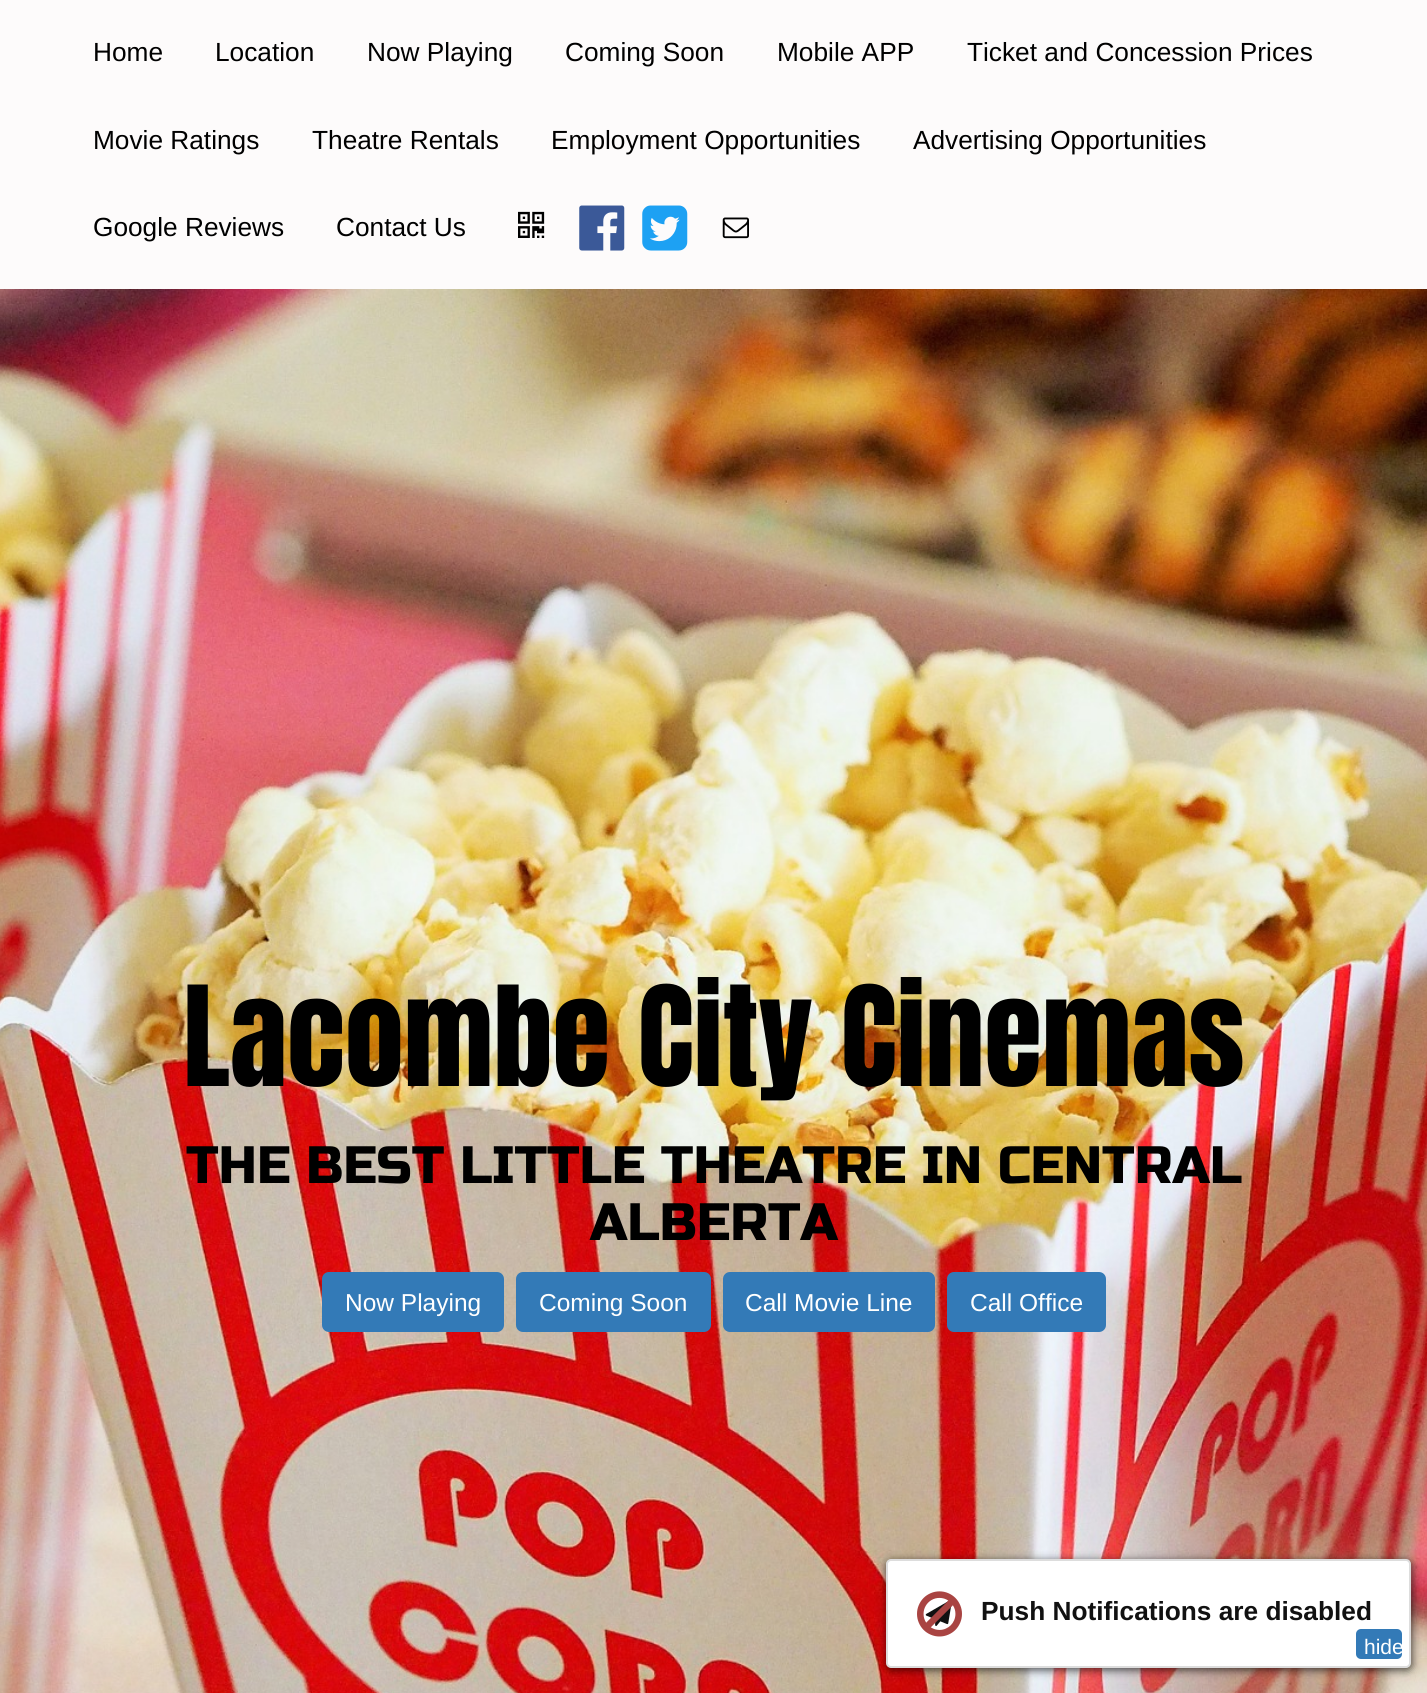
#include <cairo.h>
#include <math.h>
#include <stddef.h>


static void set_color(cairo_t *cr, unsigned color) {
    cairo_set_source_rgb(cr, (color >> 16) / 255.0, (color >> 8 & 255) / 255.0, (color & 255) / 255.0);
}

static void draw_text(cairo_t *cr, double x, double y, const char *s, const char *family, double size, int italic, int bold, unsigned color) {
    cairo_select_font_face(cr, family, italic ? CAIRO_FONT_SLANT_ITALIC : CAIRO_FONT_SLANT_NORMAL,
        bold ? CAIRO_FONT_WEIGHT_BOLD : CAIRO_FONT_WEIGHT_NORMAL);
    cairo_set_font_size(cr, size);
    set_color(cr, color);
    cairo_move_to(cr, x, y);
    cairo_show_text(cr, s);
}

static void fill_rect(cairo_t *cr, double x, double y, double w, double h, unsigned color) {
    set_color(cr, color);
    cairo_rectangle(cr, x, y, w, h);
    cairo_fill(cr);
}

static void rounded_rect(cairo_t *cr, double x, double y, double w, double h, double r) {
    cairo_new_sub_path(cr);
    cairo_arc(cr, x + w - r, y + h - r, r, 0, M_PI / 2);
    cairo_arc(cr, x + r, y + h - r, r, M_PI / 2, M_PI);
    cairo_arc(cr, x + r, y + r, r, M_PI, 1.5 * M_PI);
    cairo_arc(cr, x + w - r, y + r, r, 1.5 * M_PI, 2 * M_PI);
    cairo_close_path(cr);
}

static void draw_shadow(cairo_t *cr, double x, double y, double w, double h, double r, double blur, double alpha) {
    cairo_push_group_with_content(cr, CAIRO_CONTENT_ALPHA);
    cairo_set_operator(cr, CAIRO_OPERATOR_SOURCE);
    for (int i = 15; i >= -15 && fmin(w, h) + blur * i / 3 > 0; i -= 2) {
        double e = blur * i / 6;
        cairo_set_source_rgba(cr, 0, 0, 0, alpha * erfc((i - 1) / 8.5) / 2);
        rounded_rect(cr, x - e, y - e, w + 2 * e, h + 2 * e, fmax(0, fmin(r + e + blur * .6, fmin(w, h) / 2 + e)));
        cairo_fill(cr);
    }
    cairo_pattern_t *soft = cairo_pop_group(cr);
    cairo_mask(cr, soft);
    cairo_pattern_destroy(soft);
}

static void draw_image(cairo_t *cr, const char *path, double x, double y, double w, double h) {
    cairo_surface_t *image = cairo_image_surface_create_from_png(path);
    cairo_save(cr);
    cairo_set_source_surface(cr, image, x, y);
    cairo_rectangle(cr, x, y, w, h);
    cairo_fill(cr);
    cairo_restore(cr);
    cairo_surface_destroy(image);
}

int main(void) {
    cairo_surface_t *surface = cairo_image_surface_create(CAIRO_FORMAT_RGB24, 1427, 1693);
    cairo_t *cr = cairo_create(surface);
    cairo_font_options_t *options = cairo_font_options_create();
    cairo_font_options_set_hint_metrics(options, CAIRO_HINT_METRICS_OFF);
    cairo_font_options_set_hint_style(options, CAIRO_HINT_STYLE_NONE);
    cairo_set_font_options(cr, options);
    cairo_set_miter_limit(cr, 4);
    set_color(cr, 0xFFFFFF);
    cairo_paint(cr);
    fill_rect(cr, 0, 0, 1427, 289, 0xFDFBFB);
    draw_text(cr, 93, 61, "Home", "Liberation Sans", 26.25, 0, 0, 0x000000);
    draw_text(cr, 215, 61, "Location", "Liberation Sans", 26.25, 0, 0, 0x000000);
    draw_text(cr, 367, 61, "Now Playing", "Liberation Sans", 26.25, 0, 0, 0x000000);
    draw_text(cr, 565, 61, "Coming Soon", "Liberation Sans", 26.25, 0, 0, 0x000000);
    draw_text(cr, 777, 61, "Mobile APP", "Liberation Sans", 26.25, 0, 0, 0x000000);
    draw_text(cr, 967, 61, "Ticket and Concession Prices", "Liberation Sans", 26.25, 0, 0, 0x000000);
    draw_text(cr, 93, 149, "Movie Ratings", "Liberation Sans", 26.25, 0, 0, 0x000000);
    draw_text(cr, 312, 149, "Theatre Rentals", "Liberation Sans", 26.25, 0, 0, 0x000000);
    draw_text(cr, 551, 149, "Employment Opportunities", "Liberation Sans", 26.25, 0, 0, 0x000000);
    draw_text(cr, 913, 149, "Advertising Opportunities", "Liberation Sans", 26.25, 0, 0, 0x000000);
    draw_text(cr, 93, 236, "Google Reviews", "Liberation Sans", 26.25, 0, 0, 0x000000);
    draw_text(cr, 336, 236, "Contact Us", "Liberation Sans", 26.25, 0, 0, 0x000000);
    draw_image(cr, "assets/img1.png", 518, 211, 27, 27);
    draw_image(cr, "assets/img2.png", 579, 205, 46, 46);
    draw_image(cr, "assets/img3.png", 642, 205, 46, 46);
    draw_image(cr, "assets/img4.png", 722, 217, 27, 22);
    draw_image(cr, "assets/img5.png", 0, 289, 1427, 1404);
    draw_text(cr, 183, 1086, "Lacombe City Cinemas", "Anton", 118.1, 0, 0, 0x000000);
    draw_text(cr, 186, 1183, "THE BEST LITTLE THEATRE IN CENTRAL", "Russo One", 52.5, 0, 0, 0x000000);
    draw_text(cr, 590, 1240, "ALBERTA", "Russo One", 52.5, 0, 0, 0x000000);
    set_color(cr, 0x337AB7);
    rounded_rect(cr, 322, 1272, 182, 60, 7);
    cairo_fill(cr);
    draw_text(cr, 345, 1311, "Now Playing", "Liberation Sans", 24.5, 0, 0, 0xFFFFFF);
    set_color(cr, 0x337AB7);
    rounded_rect(cr, 516, 1272, 195, 60, 7);
    cairo_fill(cr);
    draw_text(cr, 539, 1311, "Coming Soon", "Liberation Sans", 24.5, 0, 0, 0xFFFFFF);
    set_color(cr, 0x337AB7);
    rounded_rect(cr, 723, 1272, 212, 60, 7);
    cairo_fill(cr);
    draw_text(cr, 745, 1311, "Call Movie Line", "Liberation Sans", 24.5, 0, 0, 0xFFFFFF);
    set_color(cr, 0x337AB7);
    rounded_rect(cr, 947, 1272, 159, 60, 7);
    cairo_fill(cr);
    draw_text(cr, 970, 1311, "Call Office", "Liberation Sans", 24.5, 0, 0, 0xFFFFFF);
    set_color(cr, 0x000000);
    draw_shadow(cr, 887, 1561, 525, 109, 5, 4.5, 0.7);
    set_color(cr, 0xFFFFFF);
    rounded_rect(cr, 887, 1560, 523, 107, 4);
    cairo_fill_preserve(cr);
    set_color(cr, 0xDDDDDD);
    cairo_stroke(cr);
    draw_image(cr, "assets/img7.png", 925, 1600, 27, 26);
    draw_image(cr, "assets/img6.png", 917, 1591, 45, 46);
    draw_text(cr, 981, 1620, "Push Notifications are disabled", "Liberation Sans", 26.25, 0, 1, 0x111111);
    set_color(cr, 0x337AB7);
    rounded_rect(cr, 1356, 1629, 46, 30, 5);
    cairo_fill(cr);
    draw_text(cr, 1364, 1654, "hide", "Liberation Sans", 21, 0, 0, 0xFFFFFF);
    cairo_surface_write_to_png(surface, "output.png");
    cairo_font_options_destroy(options);
    cairo_destroy(cr);
    cairo_surface_destroy(surface);
    return 0;
}
